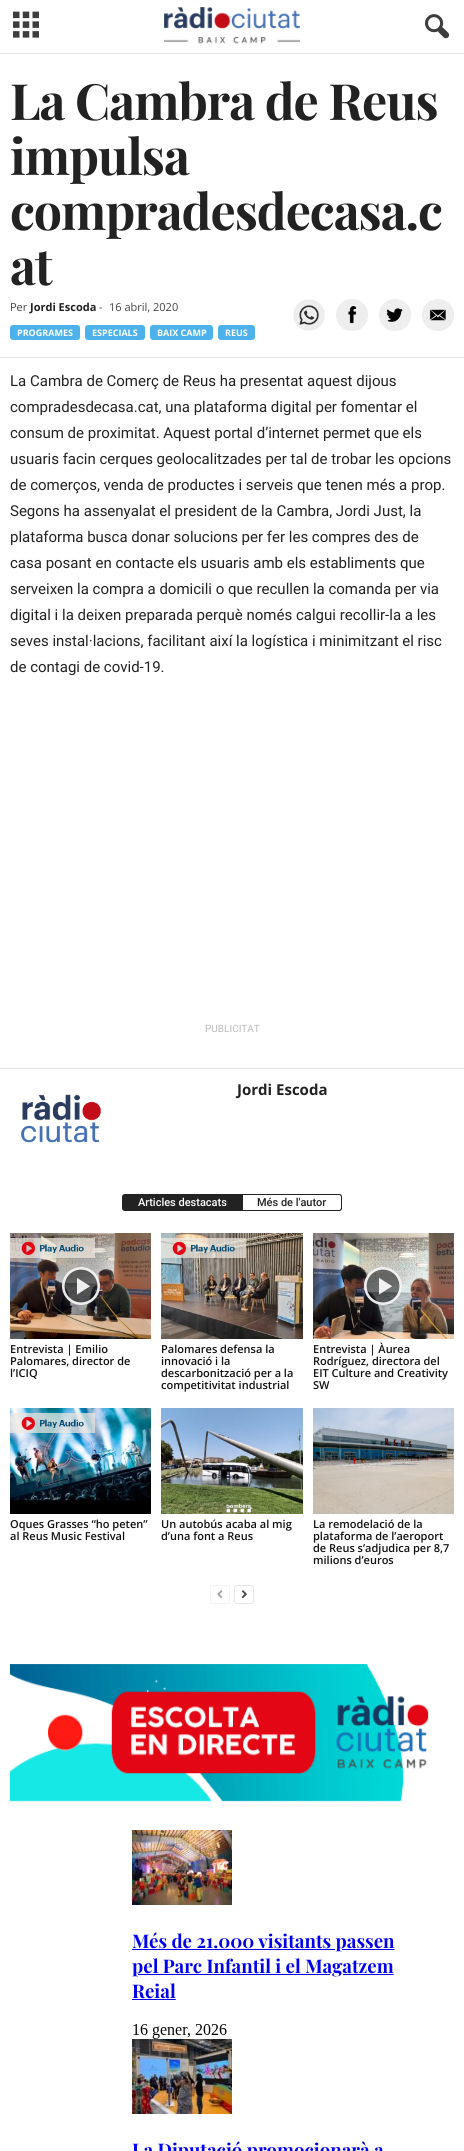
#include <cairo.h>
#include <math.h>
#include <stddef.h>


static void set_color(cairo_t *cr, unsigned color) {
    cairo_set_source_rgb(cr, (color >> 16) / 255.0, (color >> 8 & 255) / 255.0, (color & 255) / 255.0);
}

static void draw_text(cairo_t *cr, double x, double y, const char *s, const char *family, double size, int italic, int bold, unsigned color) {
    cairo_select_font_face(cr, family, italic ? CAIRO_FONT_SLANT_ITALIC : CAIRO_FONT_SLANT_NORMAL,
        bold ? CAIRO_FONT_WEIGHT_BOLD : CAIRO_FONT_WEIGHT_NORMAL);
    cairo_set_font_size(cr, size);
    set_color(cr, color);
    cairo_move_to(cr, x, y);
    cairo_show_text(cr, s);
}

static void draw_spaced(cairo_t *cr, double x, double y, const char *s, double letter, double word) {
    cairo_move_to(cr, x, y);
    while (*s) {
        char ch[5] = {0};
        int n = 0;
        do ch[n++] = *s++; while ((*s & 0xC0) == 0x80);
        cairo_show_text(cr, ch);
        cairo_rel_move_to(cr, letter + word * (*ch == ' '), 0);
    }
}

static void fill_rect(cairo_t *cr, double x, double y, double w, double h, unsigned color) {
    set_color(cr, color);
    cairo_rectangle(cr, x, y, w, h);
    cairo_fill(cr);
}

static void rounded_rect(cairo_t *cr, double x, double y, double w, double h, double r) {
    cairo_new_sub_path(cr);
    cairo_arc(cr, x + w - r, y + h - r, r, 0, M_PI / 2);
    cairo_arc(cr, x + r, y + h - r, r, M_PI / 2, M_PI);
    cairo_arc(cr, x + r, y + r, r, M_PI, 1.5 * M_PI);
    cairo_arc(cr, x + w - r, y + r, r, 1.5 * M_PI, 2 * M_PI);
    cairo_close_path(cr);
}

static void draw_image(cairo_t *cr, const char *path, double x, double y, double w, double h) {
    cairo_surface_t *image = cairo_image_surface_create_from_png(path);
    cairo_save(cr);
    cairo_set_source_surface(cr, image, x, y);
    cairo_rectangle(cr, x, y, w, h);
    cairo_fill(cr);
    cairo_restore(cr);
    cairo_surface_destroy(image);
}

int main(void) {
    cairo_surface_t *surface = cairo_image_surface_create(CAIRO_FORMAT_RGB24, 464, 2151);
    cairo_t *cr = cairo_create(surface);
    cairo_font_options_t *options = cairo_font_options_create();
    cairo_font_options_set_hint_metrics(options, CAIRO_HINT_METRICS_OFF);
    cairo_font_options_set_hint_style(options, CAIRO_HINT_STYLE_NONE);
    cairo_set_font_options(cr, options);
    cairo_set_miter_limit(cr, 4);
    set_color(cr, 0xFFFFFF);
    cairo_paint(cr);
    fill_rect(cr, 0, 53, 464, 1, 0xE6E6E6);
    draw_image(cr, "assets/img1.png", 13, 11, 26, 27);
    draw_image(cr, "assets/img2.png", 164, 7, 136, 37);
    draw_image(cr, "assets/img3.png", 425, 14, 25, 25);
    cairo_select_font_face(cr, "Playfair Display", CAIRO_FONT_SLANT_NORMAL, CAIRO_FONT_WEIGHT_BOLD);
    cairo_set_font_size(cr, 50);
    set_color(cr, 0x222222);
    draw_spaced(cr, 10, 120, "La Cambra de Reus", -1, 0);
    draw_spaced(cr, 10, 175, "impulsa", -1, 0);
    draw_spaced(cr, 10, 230, "compradesdecasa.c", -1, 0);
    draw_spaced(cr, 10, 285, "at", -1, 0);
    draw_text(cr, 10, 311, "Per", "Open Sans", 11, 0, 0, 0x444444);
    draw_text(cr, 30, 311, "Jordi Escoda", "Open Sans", 11, 0, 1, 0x222222);
    draw_text(cr, 99, 311, "-", "Open Sans", 11, 0, 0, 0x444444);
    draw_text(cr, 109, 311, "16 abril, 2020", "Open Sans", 11, 0, 0, 0x444444);
    draw_image(cr, "assets/img4.png", 293, 299, 32, 32);
    draw_image(cr, "assets/img5.png", 336, 299, 32, 32);
    draw_image(cr, "assets/img6.png", 379, 299, 32, 32);
    draw_image(cr, "assets/img7.png", 422, 299, 32, 32);
    set_color(cr, 0x4DB2EC);
    rounded_rect(cr, 10, 325, 70, 15, 3);
    cairo_fill(cr);
    draw_text(cr, 17, 336, "PROGRAMES", "Open Sans", 9, 0, 1, 0xFFFFFF);
    set_color(cr, 0x4DB2EC);
    rounded_rect(cr, 85, 325, 60, 15, 3);
    cairo_fill(cr);
    draw_text(cr, 92, 336, "ESPECIALS", "Open Sans", 9, 0, 1, 0xFFFFFF);
    set_color(cr, 0x4DB2EC);
    rounded_rect(cr, 150, 325, 63, 15, 3);
    cairo_fill(cr);
    draw_text(cr, 157, 336, "BAIX CAMP", "Open Sans", 9, 0, 1, 0xFFFFFF);
    set_color(cr, 0x4DB2EC);
    rounded_rect(cr, 218, 325, 37, 15, 3);
    cairo_fill(cr);
    draw_text(cr, 225, 336, "REUS", "Open Sans", 9, 0, 1, 0xFFFFFF);
    fill_rect(cr, 0, 357, 464, 1, 0xE6E6E6);
    draw_text(cr, 10, 386, "La Cambra de Comerç de Reus ha presentat aquest dijous", "Roboto", 15, 0, 0, 0x222222);
    draw_text(cr, 10, 412, "compradesdecasa.cat, una plataforma digital per fomentar el", "Roboto", 15, 0, 0, 0x222222);
    draw_text(cr, 10, 438, "consum de proximitat. Aquest portal d’internet permet que els", "Roboto", 15, 0, 0, 0x222222);
    draw_text(cr, 10, 464, "usuaris facin cerques geolocalitzades per tal de trobar les opcions", "Roboto", 15, 0, 0, 0x222222);
    draw_text(cr, 10, 490, "de comerços, venda de productes i serveis que tenen més a prop.", "Roboto", 15, 0, 0, 0x222222);
    draw_text(cr, 10, 516, "Segons ha assenyalat el president de la Cambra, Jordi Just, la", "Roboto", 15, 0, 0, 0x222222);
    draw_text(cr, 10, 542, "plataforma busca donar solucions per fer les compres des de", "Roboto", 15, 0, 0, 0x222222);
    draw_text(cr, 10, 568, "casa posant en contacte els usuaris amb els establiments que", "Roboto", 15, 0, 0, 0x222222);
    draw_text(cr, 10, 594, "serveixen la compra a domicili o que recullen la comanda per via", "Roboto", 15, 0, 0, 0x222222);
    draw_text(cr, 10, 620, "digital i la deixen preparada perquè només calgui recollir-la a les", "Roboto", 15, 0, 0, 0x222222);
    draw_text(cr, 10, 646, "seves instal·lacions, facilitant així la logística i minimitzant el risc", "Roboto", 15, 0, 0, 0x222222);
    draw_text(cr, 10, 672, "de contagi de covid-19.", "Roboto", 15, 0, 0, 0x222222);
    draw_text(cr, 205, 1032, "PUBLICITAT", "Roboto", 10, 0, 0, 0xBBBBBB);
    fill_rect(cr, 0, 1068, 464, 1, 0xE6E6E6);
    draw_text(cr, 237, 1095, "Jordi Escoda", "Open Sans", 15, 0, 1, 0x222222);
    draw_image(cr, "assets/img8.png", 20, 1094, 81, 49);
    cairo_new_path(cr);
    cairo_move_to(cr, 125, 1194.5);
    cairo_line_to(cr, 242.5, 1194.5);
    cairo_line_to(cr, 242.5, 1210.5);
    cairo_line_to(cr, 125, 1210.5);
    cairo_curve_to(cr, 123.5, 1210.5, 122.5, 1209.5, 122.5, 1208);
    cairo_line_to(cr, 122.5, 1197);
    cairo_curve_to(cr, 122.5, 1195.5, 123.5, 1194.5, 125, 1194.5);
    cairo_close_path(cr);
    cairo_fill_preserve(cr);
    cairo_set_line_width(cr, 1);
    cairo_stroke(cr);
    draw_text(cr, 138, 1206, "Articles destacats", "Roboto Medium", 11, 0, 0, 0xFFFFFF);
    set_color(cr, 0x222222);
    cairo_set_fill_rule(cr, CAIRO_FILL_RULE_EVEN_ODD);
    cairo_new_path(cr);
    cairo_move_to(cr, 243, 1194);
    cairo_line_to(cr, 339, 1194);
    cairo_curve_to(cr, 341, 1194, 342, 1195, 342, 1197);
    cairo_line_to(cr, 342, 1208);
    cairo_curve_to(cr, 342, 1210, 341, 1211, 339, 1211);
    cairo_line_to(cr, 243, 1211);
    cairo_close_path(cr);
    cairo_move_to(cr, 243, 1195);
    cairo_line_to(cr, 339, 1195);
    cairo_curve_to(cr, 340, 1195, 341, 1196, 341, 1197);
    cairo_line_to(cr, 341, 1208);
    cairo_curve_to(cr, 341, 1209, 340, 1210, 339, 1210);
    cairo_line_to(cr, 243, 1210);
    cairo_close_path(cr);
    cairo_fill(cr);
    draw_text(cr, 257, 1206, "Més de l'autor", "Roboto Medium", 11, 0, 0, 0x222222);
    draw_image(cr, "assets/img9.png", 10, 1233, 141, 106);
    draw_image(cr, "assets/img10.png", 10, 1238, 85, 20);
    draw_image(cr, "assets/img11.png", 62, 1267, 38, 38);
    draw_text(cr, 10, 1353, "Entrevista | Emilio", "Open Sans SemiBold", 11, 0, 0, 0x111111);
    draw_text(cr, 10, 1365, "Palomares, director de", "Open Sans SemiBold", 11, 0, 0, 0x111111);
    draw_text(cr, 10, 1377, "l’ICIQ", "Open Sans SemiBold", 11, 0, 0, 0x111111);
    draw_image(cr, "assets/img12.png", 161, 1233, 142, 106);
    draw_image(cr, "assets/img13.png", 161, 1238, 85, 20);
    draw_text(cr, 161, 1353, "Palomares defensa la", "Open Sans SemiBold", 11, 0, 0, 0x111111);
    draw_text(cr, 161, 1365, "innovació i la", "Open Sans SemiBold", 11, 0, 0, 0x111111);
    draw_text(cr, 161, 1377, "descarbonització per a la", "Open Sans SemiBold", 11, 0, 0, 0x111111);
    draw_text(cr, 161, 1389, "competitivitat industrial", "Open Sans SemiBold", 11, 0, 0, 0x111111);
    draw_image(cr, "assets/img14.png", 313, 1233, 141, 106);
    draw_image(cr, "assets/img15.png", 364, 1267, 38, 38);
    draw_text(cr, 313, 1353, "Entrevista | Àurea", "Open Sans SemiBold", 11, 0, 0, 0x111111);
    draw_text(cr, 313, 1365, "Rodríguez, directora del", "Open Sans SemiBold", 11, 0, 0, 0x111111);
    draw_text(cr, 313, 1377, "EIT Culture and Creativity", "Open Sans SemiBold", 11, 0, 0, 0x111111);
    draw_text(cr, 313, 1389, "SW", "Open Sans SemiBold", 11, 0, 0, 0x111111);
    draw_image(cr, "assets/img16.png", 10, 1408, 141, 106);
    draw_image(cr, "assets/img17.png", 10, 1413, 85, 20);
    draw_text(cr, 10, 1528, "Oques Grasses “ho peten”", "Open Sans SemiBold", 11, 0, 0, 0x111111);
    draw_text(cr, 10, 1540, "al Reus Music Festival", "Open Sans SemiBold", 11, 0, 0, 0x111111);
    draw_image(cr, "assets/img18.png", 161, 1408, 142, 106);
    draw_text(cr, 161, 1528, "Un autobús acaba al mig", "Open Sans SemiBold", 11, 0, 0, 0x111111);
    draw_text(cr, 161, 1540, "d’una font a Reus", "Open Sans SemiBold", 11, 0, 0, 0x111111);
    draw_image(cr, "assets/img19.png", 313, 1408, 141, 106);
    draw_text(cr, 313, 1528, "La remodelació de la", "Open Sans SemiBold", 11, 0, 0, 0x111111);
    draw_text(cr, 313, 1540, "plataforma de l’aeroport", "Open Sans SemiBold", 11, 0, 0, 0x111111);
    draw_text(cr, 313, 1552, "de Reus s’adjudica per 8,7", "Open Sans SemiBold", 11, 0, 0, 0x111111);
    draw_text(cr, 313, 1564, "milions d’euros", "Open Sans SemiBold", 11, 0, 0, 0x111111);
    rounded_rect(cr, 210.5, 1585.5, 19, 18, 2.5);
    set_color(cr, 0xF3F3F3);
    cairo_stroke(cr);
    draw_image(cr, "assets/img20.png", 217, 1590, 6, 9);
    rounded_rect(cr, 234.5, 1585.5, 19, 18, 2.5);
    set_color(cr, 0xE6E6E6);
    cairo_stroke(cr);
    draw_image(cr, "assets/img21.png", 241, 1590, 6, 9);
    draw_image(cr, "assets/img22.png", 10, 1664, 419, 138);
    draw_image(cr, "assets/img23.png", 132, 1830, 263, 321);
    cairo_surface_write_to_png(surface, "output.png");
    cairo_font_options_destroy(options);
    cairo_destroy(cr);
    cairo_surface_destroy(surface);
    return 0;
}
